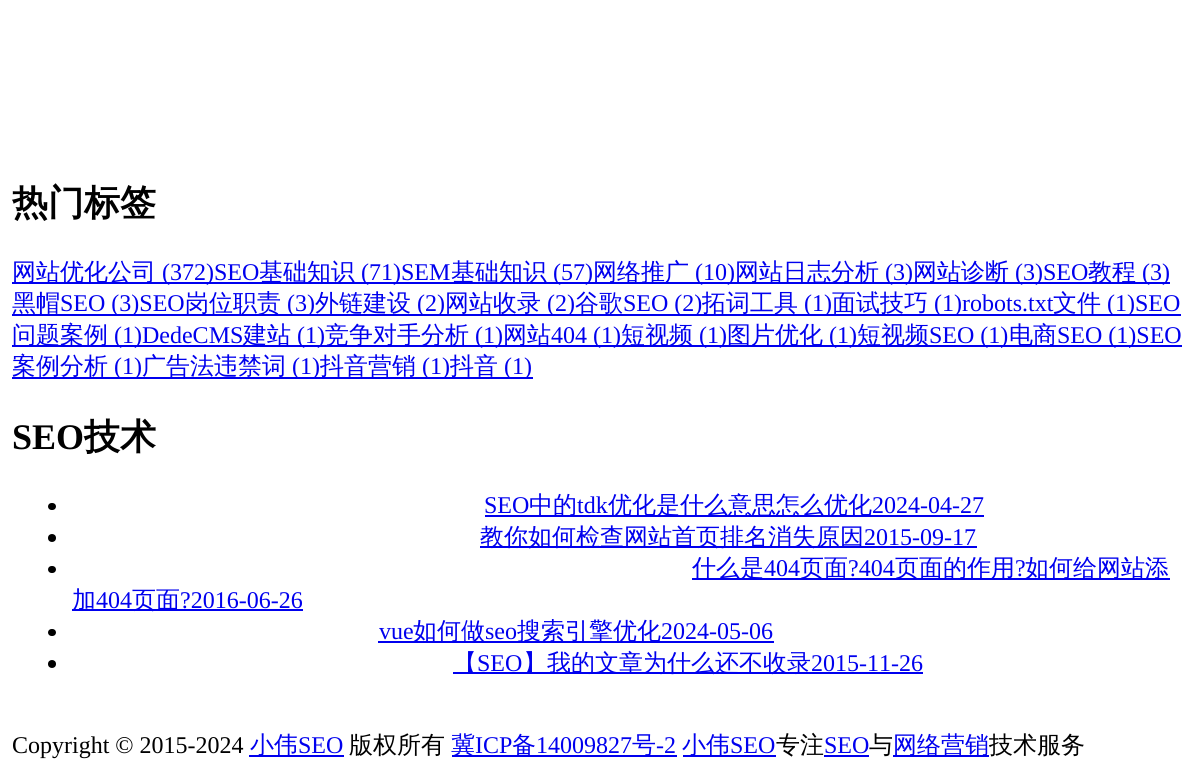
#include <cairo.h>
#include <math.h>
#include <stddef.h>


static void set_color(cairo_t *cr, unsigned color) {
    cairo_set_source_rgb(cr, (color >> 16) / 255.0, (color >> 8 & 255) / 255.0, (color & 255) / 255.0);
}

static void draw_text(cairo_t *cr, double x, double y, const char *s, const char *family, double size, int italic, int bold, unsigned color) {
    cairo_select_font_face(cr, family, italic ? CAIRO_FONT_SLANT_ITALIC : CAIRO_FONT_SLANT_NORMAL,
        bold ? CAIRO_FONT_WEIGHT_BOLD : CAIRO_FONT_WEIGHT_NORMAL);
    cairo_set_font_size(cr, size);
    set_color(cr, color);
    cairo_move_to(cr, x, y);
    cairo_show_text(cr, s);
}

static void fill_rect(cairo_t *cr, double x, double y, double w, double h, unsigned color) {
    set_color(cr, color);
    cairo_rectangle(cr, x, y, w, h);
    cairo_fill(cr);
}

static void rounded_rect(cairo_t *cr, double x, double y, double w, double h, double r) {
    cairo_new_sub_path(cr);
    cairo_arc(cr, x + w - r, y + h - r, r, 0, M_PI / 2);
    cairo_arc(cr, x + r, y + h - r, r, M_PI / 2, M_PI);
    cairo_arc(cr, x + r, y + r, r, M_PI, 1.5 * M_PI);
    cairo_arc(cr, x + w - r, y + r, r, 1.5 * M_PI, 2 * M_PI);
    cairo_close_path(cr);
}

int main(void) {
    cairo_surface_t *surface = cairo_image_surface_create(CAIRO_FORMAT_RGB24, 1197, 773);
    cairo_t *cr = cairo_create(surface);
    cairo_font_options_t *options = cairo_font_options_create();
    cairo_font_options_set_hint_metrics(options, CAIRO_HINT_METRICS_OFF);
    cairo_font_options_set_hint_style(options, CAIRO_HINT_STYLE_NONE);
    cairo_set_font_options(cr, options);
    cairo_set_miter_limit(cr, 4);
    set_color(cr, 0xFFFFFF);
    cairo_paint(cr);
    draw_text(cr, 12, 215, "热门标签", "WenQuanYi Zen Hei", 36, 0, 1, 0x000000);
    fill_rect(cr, 12, 282, 1158, 2, 0x0000EE);
    draw_text(cr, 12, 280, "网站优化公司", "WenQuanYi Zen Hei Medium", 24, 0, 0, 0x0000EE);
    draw_text(cr, 162, 280, "(372)SEO", "Liberation Serif", 24, 0, 0, 0x0000EE);
    draw_text(cr, 259, 280, "基础知识", "WenQuanYi Zen Hei Medium", 24, 0, 0, 0x0000EE);
    draw_text(cr, 361, 280, "(71)SEM", "Liberation Serif", 24, 0, 0, 0x0000EE);
    draw_text(cr, 451, 280, "基础知识", "WenQuanYi Zen Hei Medium", 24, 0, 0, 0x0000EE);
    draw_text(cr, 553, 280, "(57)", "Liberation Serif", 24, 0, 0, 0x0000EE);
    draw_text(cr, 593, 280, "网络推广", "WenQuanYi Zen Hei Medium", 24, 0, 0, 0x0000EE);
    draw_text(cr, 695, 280, "(10)", "Liberation Serif", 24, 0, 0, 0x0000EE);
    draw_text(cr, 735, 280, "网站日志分析", "WenQuanYi Zen Hei Medium", 24, 0, 0, 0x0000EE);
    draw_text(cr, 885, 280, "(3)", "Liberation Serif", 24, 0, 0, 0x0000EE);
    draw_text(cr, 913, 280, "网站诊断", "WenQuanYi Zen Hei Medium", 24, 0, 0, 0x0000EE);
    draw_text(cr, 1015, 280, "(3)SEO", "Liberation Serif", 24, 0, 0, 0x0000EE);
    draw_text(cr, 1088, 280, "教程", "WenQuanYi Zen Hei Medium", 24, 0, 0, 0x0000EE);
    draw_text(cr, 1142, 280, "(3)", "Liberation Serif", 24, 0, 0, 0x0000EE);
    fill_rect(cr, 12, 314, 1169, 2, 0x0000EE);
    draw_text(cr, 12, 311, "黑帽", "WenQuanYi Zen Hei Medium", 24, 0, 0, 0x0000EE);
    draw_text(cr, 60, 311, "SEO (3)SEO", "Liberation Serif", 24, 0, 0, 0x0000EE);
    draw_text(cr, 185, 311, "岗位职责", "WenQuanYi Zen Hei Medium", 24, 0, 0, 0x0000EE);
    draw_text(cr, 287, 311, "(3)", "Liberation Serif", 24, 0, 0, 0x0000EE);
    draw_text(cr, 315, 311, "外链建设", "WenQuanYi Zen Hei Medium", 24, 0, 0, 0x0000EE);
    draw_text(cr, 417, 311, "(2)", "Liberation Serif", 24, 0, 0, 0x0000EE);
    draw_text(cr, 445, 311, "网站收录", "WenQuanYi Zen Hei Medium", 24, 0, 0, 0x0000EE);
    draw_text(cr, 547, 311, "(2)", "Liberation Serif", 24, 0, 0, 0x0000EE);
    draw_text(cr, 575, 311, "谷歌", "WenQuanYi Zen Hei Medium", 24, 0, 0, 0x0000EE);
    draw_text(cr, 623, 311, "SEO (2)", "Liberation Serif", 24, 0, 0, 0x0000EE);
    draw_text(cr, 702, 311, "拓词工具", "WenQuanYi Zen Hei Medium", 24, 0, 0, 0x0000EE);
    draw_text(cr, 804, 311, "(1)", "Liberation Serif", 24, 0, 0, 0x0000EE);
    draw_text(cr, 832, 311, "面试技巧", "WenQuanYi Zen Hei Medium", 24, 0, 0, 0x0000EE);
    draw_text(cr, 934, 311, "(1)robots.txt", "Liberation Serif", 24, 0, 0, 0x0000EE);
    draw_text(cr, 1053, 311, "文件", "WenQuanYi Zen Hei Medium", 24, 0, 0, 0x0000EE);
    draw_text(cr, 1107, 311, "(1)SEO", "Liberation Serif", 24, 0, 0, 0x0000EE);
    fill_rect(cr, 12, 345, 1170, 2, 0x0000EE);
    draw_text(cr, 12, 343, "问题案例", "WenQuanYi Zen Hei Medium", 24, 0, 0, 0x0000EE);
    draw_text(cr, 114, 343, "(1)DedeCMS", "Liberation Serif", 24, 0, 0, 0x0000EE);
    draw_text(cr, 243, 343, "建站", "WenQuanYi Zen Hei Medium", 24, 0, 0, 0x0000EE);
    draw_text(cr, 297, 343, "(1)", "Liberation Serif", 24, 0, 0, 0x0000EE);
    draw_text(cr, 325, 343, "竞争对手分析", "WenQuanYi Zen Hei Medium", 24, 0, 0, 0x0000EE);
    draw_text(cr, 475, 343, "(1)", "Liberation Serif", 24, 0, 0, 0x0000EE);
    draw_text(cr, 503, 343, "网站", "WenQuanYi Zen Hei Medium", 24, 0, 0, 0x0000EE);
    draw_text(cr, 551, 343, "404 (1)", "Liberation Serif", 24, 0, 0, 0x0000EE);
    draw_text(cr, 621, 343, "短视频", "WenQuanYi Zen Hei Medium", 24, 0, 0, 0x0000EE);
    draw_text(cr, 699, 343, "(1)", "Liberation Serif", 24, 0, 0, 0x0000EE);
    draw_text(cr, 727, 343, "图片优化", "WenQuanYi Zen Hei Medium", 24, 0, 0, 0x0000EE);
    draw_text(cr, 829, 343, "(1)", "Liberation Serif", 24, 0, 0, 0x0000EE);
    draw_text(cr, 857, 343, "短视频", "WenQuanYi Zen Hei Medium", 24, 0, 0, 0x0000EE);
    draw_text(cr, 929, 343, "SEO (1)", "Liberation Serif", 24, 0, 0, 0x0000EE);
    draw_text(cr, 1009, 343, "电商", "WenQuanYi Zen Hei Medium", 24, 0, 0, 0x0000EE);
    draw_text(cr, 1057, 343, "SEO (1)SEO", "Liberation Serif", 24, 0, 0, 0x0000EE);
    fill_rect(cr, 12, 377, 521, 2, 0x0000EE);
    draw_text(cr, 12, 374, "案例分析", "WenQuanYi Zen Hei Medium", 24, 0, 0, 0x0000EE);
    draw_text(cr, 114, 374, "(1)", "Liberation Serif", 24, 0, 0, 0x0000EE);
    draw_text(cr, 142, 374, "广告法违禁词", "WenQuanYi Zen Hei Medium", 24, 0, 0, 0x0000EE);
    draw_text(cr, 292, 374, "(1)", "Liberation Serif", 24, 0, 0, 0x0000EE);
    draw_text(cr, 320, 374, "抖音营销", "WenQuanYi Zen Hei Medium", 24, 0, 0, 0x0000EE);
    draw_text(cr, 422, 374, "(1)", "Liberation Serif", 24, 0, 0, 0x0000EE);
    draw_text(cr, 450, 374, "抖音", "WenQuanYi Zen Hei Medium", 24, 0, 0, 0x0000EE);
    draw_text(cr, 504, 374, "(1)", "Liberation Serif", 24, 0, 0, 0x0000EE);
    draw_text(cr, 12, 449, "SEO", "Liberation Serif", 36, 0, 1, 0x000000);
    draw_text(cr, 84, 449, "技术", "WenQuanYi Zen Hei", 36, 0, 1, 0x000000);
    rounded_rect(cr, 48, 503, 8, 7, 3.5);
    cairo_fill(cr);
    draw_text(cr, 484, 513, "SEO", "Liberation Serif", 24, 0, 0, 0x0000EE);
    fill_rect(cr, 485, 515, 499, 2, 0x0000EE);
    draw_text(cr, 529, 513, "中的", "WenQuanYi Zen Hei Medium", 24, 0, 0, 0x0000EE);
    draw_text(cr, 577, 513, "tdk", "Liberation Serif", 24, 0, 0, 0x0000EE);
    draw_text(cr, 608, 513, "优化是什么意思怎么优化", "WenQuanYi Zen Hei Medium", 24, 0, 0, 0x0000EE);
    draw_text(cr, 872, 513, "2024-04-27", "Liberation Serif", 24, 0, 0, 0x0000EE);
    set_color(cr, 0x000000);
    cairo_new_path(cr);
    cairo_arc(cr, 52, 538, 4, 0, 2 * M_PI);
    cairo_fill(cr);
    fill_rect(cr, 480, 546, 497, 2, 0x0000EE);
    draw_text(cr, 480, 545, "教你如何检查网站首页排名消失原因", "WenQuanYi Zen Hei Medium", 24, 0, 0, 0x0000EE);
    draw_text(cr, 864, 545, "2015-09-17", "Liberation Serif", 24, 0, 0, 0x0000EE);
    set_color(cr, 0x000000);
    rounded_rect(cr, 48, 566, 8, 7, 3.5);
    cairo_fill(cr);
    fill_rect(cr, 692, 578, 478, 2, 0x0000EE);
    draw_text(cr, 692, 576, "什么是", "WenQuanYi Zen Hei Medium", 24, 0, 0, 0x0000EE);
    draw_text(cr, 764, 576, "404", "Liberation Serif", 24, 0, 0, 0x0000EE);
    draw_text(cr, 800, 576, "页面", "WenQuanYi Zen Hei Medium", 24, 0, 0, 0x0000EE);
    draw_text(cr, 848, 576, "?404", "Liberation Serif", 24, 0, 0, 0x0000EE);
    draw_text(cr, 895, 576, "页面的作用", "WenQuanYi Zen Hei Medium", 24, 0, 0, 0x0000EE);
    draw_text(cr, 1015, 576, "?", "Liberation Serif", 24, 0, 0, 0x0000EE);
    draw_text(cr, 1025, 576, "如何给网站添", "WenQuanYi Zen Hei Medium", 24, 0, 0, 0x0000EE);
    fill_rect(cr, 72, 609, 231, 2, 0x0000EE);
    draw_text(cr, 72, 608, "加", "WenQuanYi Zen Hei Medium", 24, 0, 0, 0x0000EE);
    draw_text(cr, 96, 608, "404", "Liberation Serif", 24, 0, 0, 0x0000EE);
    draw_text(cr, 132, 608, "页面", "WenQuanYi Zen Hei Medium", 24, 0, 0, 0x0000EE);
    draw_text(cr, 180, 608, "?2016-06-26", "Liberation Serif", 24, 0, 0, 0x0000EE);
    set_color(cr, 0x000000);
    rounded_rect(cr, 48, 629, 8, 7, 3.5);
    cairo_fill(cr);
    draw_text(cr, 379, 639, "vue", "Liberation Serif", 24, 0, 0, 0x0000EE);
    fill_rect(cr, 378, 641, 396, 2, 0x0000EE);
    draw_text(cr, 413, 639, "如何做", "WenQuanYi Zen Hei Medium", 24, 0, 0, 0x0000EE);
    draw_text(cr, 485, 639, "seo", "Liberation Serif", 24, 0, 0, 0x0000EE);
    draw_text(cr, 517, 639, "搜索引擎优化", "WenQuanYi Zen Hei Medium", 24, 0, 0, 0x0000EE);
    draw_text(cr, 661, 639, "2024-05-06", "Liberation Serif", 24, 0, 0, 0x0000EE);
    set_color(cr, 0x000000);
    cairo_new_path(cr);
    cairo_arc(cr, 52, 664, 4, 0, 2 * M_PI);
    cairo_fill(cr);
    fill_rect(cr, 453, 672, 470, 2, 0x0000EE);
    draw_text(cr, 453, 671, "【", "WenQuanYi Zen Hei Medium", 24, 0, 0, 0x0000EE);
    draw_text(cr, 477, 671, "SEO", "Liberation Serif", 24, 0, 0, 0x0000EE);
    draw_text(cr, 523, 671, "】我的文章为什么还不收录", "WenQuanYi Zen Hei Medium", 24, 0, 0, 0x0000EE);
    draw_text(cr, 811, 671, "2015-11-26", "Liberation Serif", 24, 0, 0, 0x0000EE);
    draw_text(cr, 12, 753, "Copyright © 2015-2024", "Liberation Serif", 24, 0, 0, 0x000000);
    fill_rect(cr, 249, 755, 95, 2, 0x0000EE);
    draw_text(cr, 250, 753, "小伟", "WenQuanYi Zen Hei Medium", 24, 0, 0, 0x0000EE);
    draw_text(cr, 298, 753, "SEO", "Liberation Serif", 24, 0, 0, 0x0000EE);
    draw_text(cr, 349, 753, "版权所有", "WenQuanYi Zen Hei Medium", 24, 0, 0, 0x000000);
    fill_rect(cr, 452, 755, 225, 2, 0x0000EE);
    draw_text(cr, 451, 753, "冀", "WenQuanYi Zen Hei Medium", 24, 0, 0, 0x0000EE);
    draw_text(cr, 475, 753, "ICP", "Liberation Serif", 24, 0, 0, 0x0000EE);
    draw_text(cr, 512, 753, "备", "WenQuanYi Zen Hei Medium", 24, 0, 0, 0x0000EE);
    draw_text(cr, 536, 753, "14009827", "Liberation Serif", 24, 0, 0, 0x0000EE);
    draw_text(cr, 632, 753, "号", "WenQuanYi Zen Hei Medium", 24, 0, 0, 0x0000EE);
    draw_text(cr, 656, 753, "-2", "Liberation Serif", 24, 0, 0, 0x0000EE);
    fill_rect(cr, 683, 755, 93, 2, 0x0000EE);
    draw_text(cr, 682, 753, "小伟", "WenQuanYi Zen Hei Medium", 24, 0, 0, 0x0000EE);
    draw_text(cr, 730, 753, "SEO", "Liberation Serif", 24, 0, 0, 0x0000EE);
    draw_text(cr, 776, 753, "专注", "WenQuanYi Zen Hei Medium", 24, 0, 0, 0x000000);
    draw_text(cr, 824, 753, "SEO", "Liberation Serif", 24, 0, 0, 0x0000EE);
    fill_rect(cr, 824, 755, 45, 2, 0x0000EE);
    draw_text(cr, 869, 753, "与", "WenQuanYi Zen Hei Medium", 24, 0, 0, 0x000000);
    fill_rect(cr, 893, 755, 96, 2, 0x0000EE);
    draw_text(cr, 893, 753, "网络营销", "WenQuanYi Zen Hei Medium", 24, 0, 0, 0x0000EE);
    draw_text(cr, 989, 753, "技术服务", "WenQuanYi Zen Hei Medium", 24, 0, 0, 0x000000);
    cairo_surface_write_to_png(surface, "output.png");
    cairo_font_options_destroy(options);
    cairo_destroy(cr);
    cairo_surface_destroy(surface);
    return 0;
}
